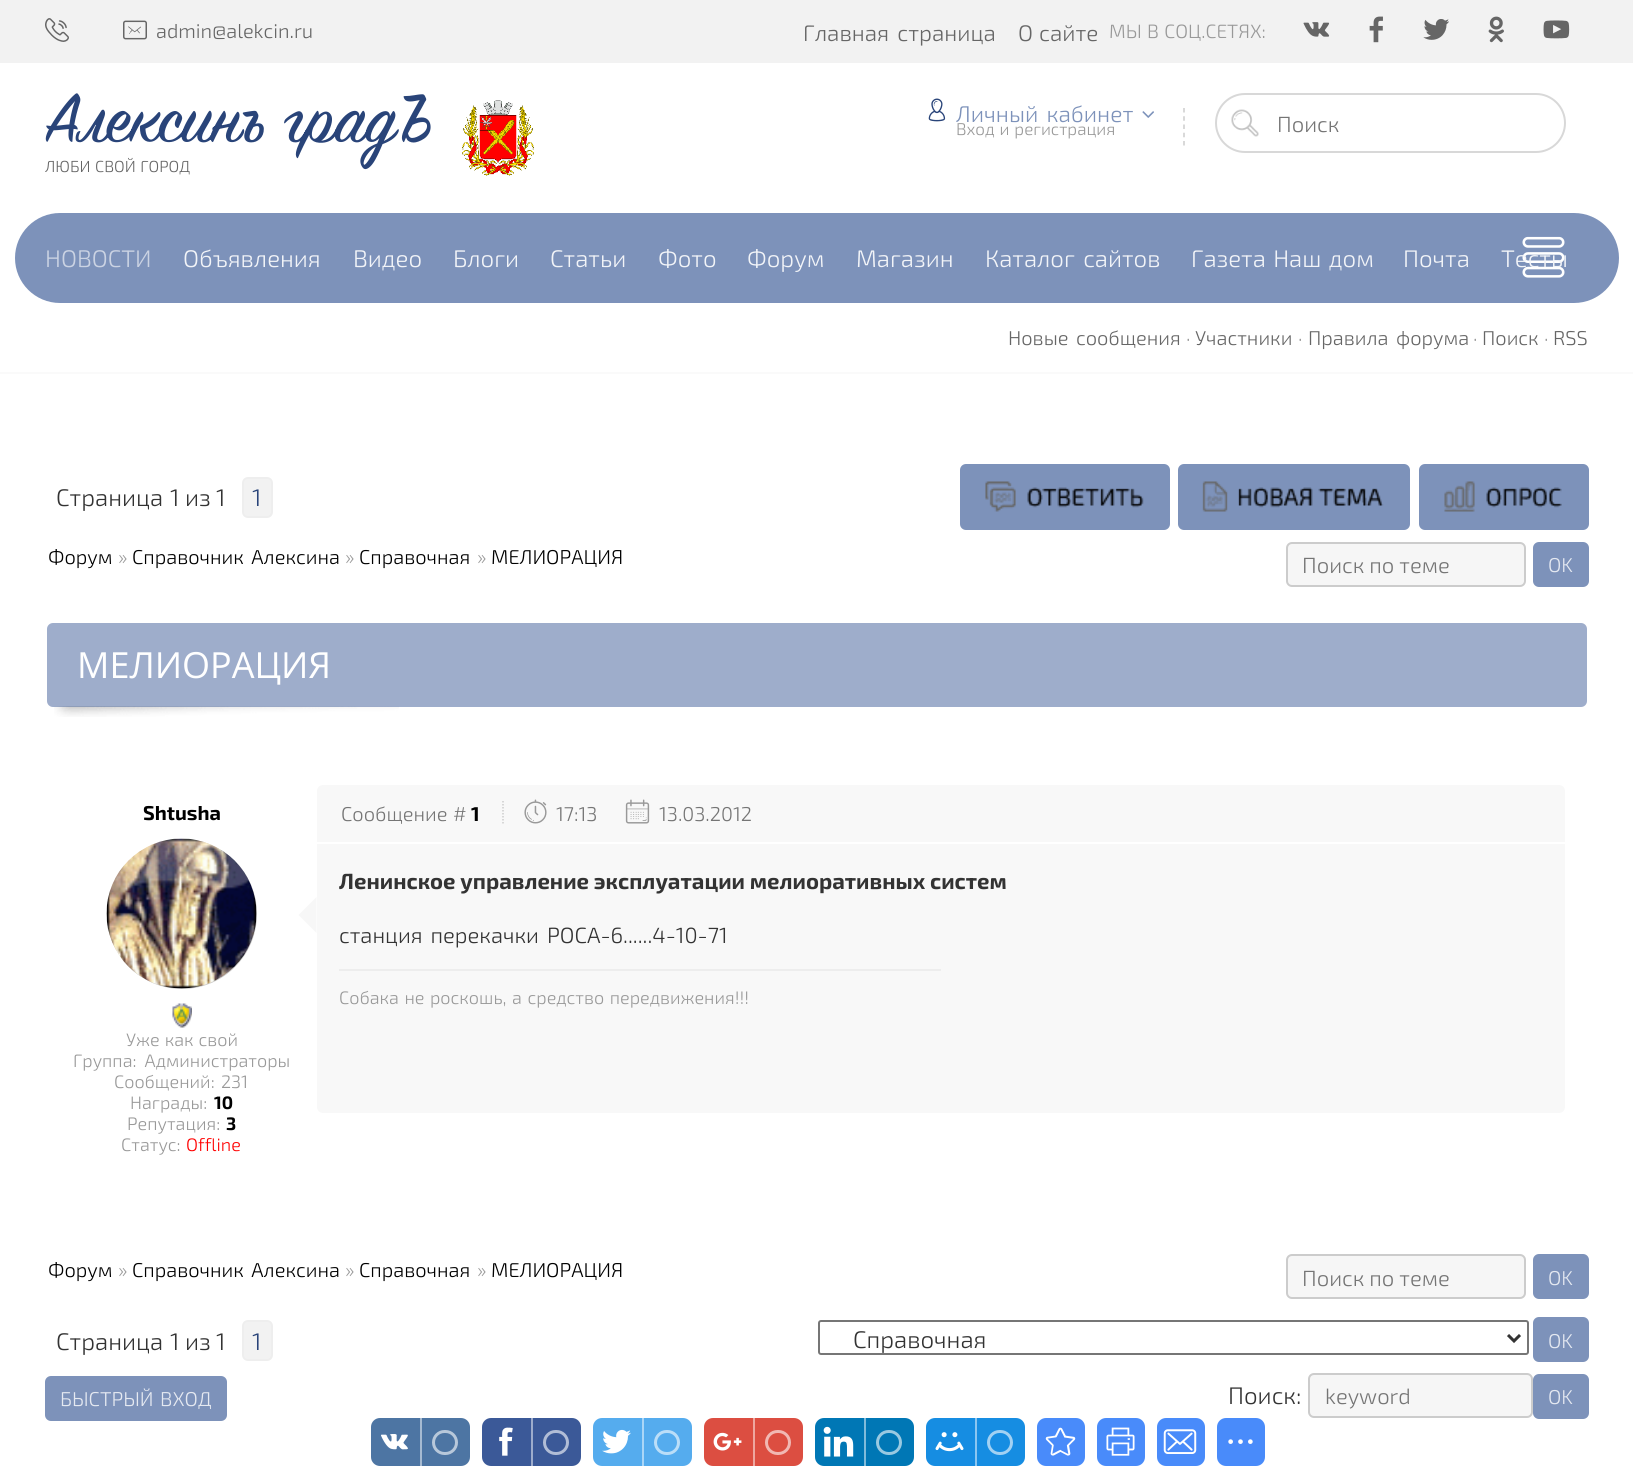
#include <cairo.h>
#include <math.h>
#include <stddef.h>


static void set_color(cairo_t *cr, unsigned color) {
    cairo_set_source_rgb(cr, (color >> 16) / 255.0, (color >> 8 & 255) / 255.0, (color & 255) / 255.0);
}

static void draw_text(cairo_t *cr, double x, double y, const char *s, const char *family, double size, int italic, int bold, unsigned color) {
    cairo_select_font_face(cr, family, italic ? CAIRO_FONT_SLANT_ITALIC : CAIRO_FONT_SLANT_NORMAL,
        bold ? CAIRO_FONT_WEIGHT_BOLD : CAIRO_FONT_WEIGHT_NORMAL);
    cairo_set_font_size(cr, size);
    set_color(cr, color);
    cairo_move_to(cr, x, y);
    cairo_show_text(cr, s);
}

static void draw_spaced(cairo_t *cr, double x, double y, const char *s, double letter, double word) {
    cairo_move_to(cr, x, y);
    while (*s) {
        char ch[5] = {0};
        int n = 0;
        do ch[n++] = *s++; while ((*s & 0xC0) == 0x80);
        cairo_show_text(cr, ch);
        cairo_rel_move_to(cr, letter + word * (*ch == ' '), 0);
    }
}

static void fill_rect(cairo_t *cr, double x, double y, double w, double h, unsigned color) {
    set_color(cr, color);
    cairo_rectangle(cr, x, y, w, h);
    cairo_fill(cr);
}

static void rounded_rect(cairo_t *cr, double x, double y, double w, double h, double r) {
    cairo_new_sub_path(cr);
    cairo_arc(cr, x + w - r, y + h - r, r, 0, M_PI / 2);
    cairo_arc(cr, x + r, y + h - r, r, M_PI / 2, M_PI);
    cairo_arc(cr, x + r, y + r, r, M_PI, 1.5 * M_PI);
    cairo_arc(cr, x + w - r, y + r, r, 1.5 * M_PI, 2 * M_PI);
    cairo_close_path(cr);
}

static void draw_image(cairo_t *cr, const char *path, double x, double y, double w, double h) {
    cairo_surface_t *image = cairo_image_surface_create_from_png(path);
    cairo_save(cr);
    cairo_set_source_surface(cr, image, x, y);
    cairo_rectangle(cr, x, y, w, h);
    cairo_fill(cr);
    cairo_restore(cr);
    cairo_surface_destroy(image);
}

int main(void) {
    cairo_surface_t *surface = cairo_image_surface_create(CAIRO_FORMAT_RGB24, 1633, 1471);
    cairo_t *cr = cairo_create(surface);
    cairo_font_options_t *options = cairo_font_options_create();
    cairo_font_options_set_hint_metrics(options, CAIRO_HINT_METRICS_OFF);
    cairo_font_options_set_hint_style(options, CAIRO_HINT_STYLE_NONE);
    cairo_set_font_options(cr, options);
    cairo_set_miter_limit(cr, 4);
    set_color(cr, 0xFFFFFF);
    cairo_paint(cr);
    fill_rect(cr, 0, 0, 1633, 63, 0xF2F2F2);
    draw_image(cr, "assets/img1.png", 45, 18, 24, 24);
    draw_image(cr, "assets/img2.png", 123, 20, 24, 20);
    draw_text(cr, 156, 38, "admin@alekcin.ru", "Exo 2 Light", 20, 0, 0, 0x666666);
    cairo_set_font_size(cr, 22.5);
    draw_spaced(cr, 803, 41, "Главная страница", 0, 3);
    draw_spaced(cr, 1018, 41, "О сайте", 0, 1);
    cairo_set_font_size(cr, 19.25);
    set_color(cr, 0x999999);
    draw_spaced(cr, 1109, 38, "МЫ В СОЦ.СЕТЯХ:", 0, 1);
    draw_image(cr, "assets/img3.png", 1303, 22, 27, 15);
    draw_image(cr, "assets/img4.png", 1369, 16, 14, 27);
    draw_image(cr, "assets/img5.png", 1423, 19, 26, 21);
    draw_image(cr, "assets/img6.png", 1488, 16, 16, 27);
    draw_image(cr, "assets/img7.png", 1543, 20, 27, 19);
    cairo_set_font_size(cr, 16);
    set_color(cr, 0x666666);
    draw_spaced(cr, 45, 172, "ЛЮБИ СВОЙ ГОРОД", 0, 1);
    draw_text(cr, 45, 141, "Алексинъ градЪ", "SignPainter", 76, 0, 0, 0x294479);
    draw_image(cr, "assets/img8.png", 462, 100, 72, 76);
    draw_image(cr, "assets/img9.png", 928, 98, 18, 24);
    cairo_select_font_face(cr, "Exo 2 Light", CAIRO_FONT_SLANT_NORMAL, CAIRO_FONT_WEIGHT_NORMAL);
    cairo_set_font_size(cr, 22.75);
    set_color(cr, 0x7D92BA);
    draw_spaced(cr, 956, 122, "Личный кабинет", 0, 3);
    draw_image(cr, "assets/img10.png", 1142, 111, 12, 7);
    cairo_new_path(cr);
    cairo_move_to(cr, 1184, 108);
    cairo_line_to(cr, 1184, 145.5);
    set_color(cr, 0xCCCCCC);
    cairo_set_line_width(cr, 1.5);
    cairo_set_dash(cr, (double[]){4.5, 3.75}, 2, 0);
    cairo_stroke(cr);
    cairo_set_font_size(cr, 17);
    set_color(cr, 0x999999);
    draw_spaced(cr, 956, 135, "Вход и регистрация", 0, 1);
    rounded_rect(cr, 1216, 94, 349, 58, 29);
    set_color(cr, 0xD8D8D8);
    cairo_set_line_width(cr, 2);
    cairo_set_dash(cr, NULL, 0, 0);
    cairo_stroke(cr);
    draw_image(cr, "assets/img11.png", 1231, 109, 28, 28);
    draw_text(cr, 1277, 132, "Поиск", "Exo 2 Light", 22, 0, 0, 0x757575);
    set_color(cr, 0x7D92BA);
    rounded_rect(cr, 15, 213, 1604, 90, 45);
    cairo_fill(cr);
    draw_image(cr, "assets/img12.png", 1522, 236, 43, 42);
    draw_text(cr, 45, 267, "НОВОСТИ", "Exo 2 Light", 24, 0, 0, 0xCBD3E3);
    draw_text(cr, 183, 267, "Объявления", "Exo 2 Light", 24, 0, 0, 0xF2F4F8);
    draw_text(cr, 353, 267, "Видео", "Exo 2 Light", 24, 0, 0, 0xF2F4F8);
    draw_text(cr, 453, 267, "Блоги", "Exo 2 Light", 24, 0, 0, 0xF2F4F8);
    draw_text(cr, 550, 267, "Статьи", "Exo 2 Light", 24, 0, 0, 0xF2F4F8);
    draw_text(cr, 658, 267, "Фото", "Exo 2 Light", 24, 0, 0, 0xF2F4F8);
    draw_text(cr, 747, 267, "Форум", "Exo 2 Light", 24, 0, 0, 0xF2F4F8);
    draw_text(cr, 856, 267, "Магазин", "Exo 2 Light", 24, 0, 0, 0xF2F4F8);
    draw_spaced(cr, 985, 267, "Каталог сайтов", 0, 3);
    draw_spaced(cr, 1191, 267, "Газета Наш дом", 0, 2);
    draw_text(cr, 1403, 267, "Почта", "Exo 2 Light", 24, 0, 0, 0xF2F4F8);
    draw_text(cr, 1501, 267, "Тесты", "Exo 2 Light", 24, 0, 0, 0xF2F4F8);
    fill_rect(cr, 0, 372, 1633, 2, 0xFAFAFA);
    cairo_set_font_size(cr, 20);
    set_color(cr, 0x666666);
    draw_spaced(cr, 1008, 345, "Новые сообщения", 0, 3);
    draw_text(cr, 1186, 345, "·", "Exo 2 Light", 20, 0, 0, 0x999999);
    draw_text(cr, 1195, 345, "Участники", "Exo 2 Light", 20, 0, 0, 0x666666);
    draw_text(cr, 1298, 345, "·", "Exo 2 Light", 20, 0, 0, 0x999999);
    set_color(cr, 0x666666);
    draw_spaced(cr, 1308, 345, "Правила форума", 0, 3);
    draw_text(cr, 1473, 345, "·", "Exo 2 Light", 20, 0, 0, 0x999999);
    draw_text(cr, 1482, 345, "Поиск", "Exo 2 Light", 20, 0, 0, 0x666666);
    draw_text(cr, 1544, 345, "·", "Exo 2 Light", 20, 0, 0, 0x999999);
    draw_text(cr, 1553, 345, "RSS", "Exo 2 Light", 20, 0, 0, 0x666666);
    draw_text(cr, 56, 506, "Страница", "Exo 2 Light", 24, 0, 0, 0x333333);
    draw_text(cr, 170, 506, "1", "Exo 2 Light", 24, 0, 0, 0x333333);
    draw_text(cr, 185, 506, "из", "Exo 2 Light", 24, 0, 0, 0x333333);
    draw_text(cr, 216, 506, "1", "Exo 2 Light", 24, 0, 0, 0x333333);
    set_color(cr, 0xF2F2F2);
    rounded_rect(cr, 243, 478, 29, 39, 5);
    cairo_fill_preserve(cr);
    set_color(cr, 0xEEEEEE);
    cairo_stroke(cr);
    draw_text(cr, 252, 506, "1", "Exo 2 Light", 24, 0, 0, 0x294479);
    set_color(cr, 0x7D92BA);
    rounded_rect(cr, 960, 464, 210, 66, 6);
    cairo_fill(cr);
    draw_image(cr, "assets/img13.png", 985, 481, 159, 31);
    rounded_rect(cr, 1178, 464, 232, 66, 6);
    cairo_fill(cr);
    draw_image(cr, "assets/img14.png", 1202, 481, 182, 31);
    rounded_rect(cr, 1419, 464, 170, 66, 6);
    cairo_fill(cr);
    draw_image(cr, "assets/img15.png", 1444, 481, 118, 31);
    draw_text(cr, 48, 564, "Форум", "Exo 2 Light", 20, 0, 0, 0x000000);
    draw_text(cr, 118, 564, "»", "Exo 2 Light", 20, 0, 0, 0x999999);
    set_color(cr, 0x000000);
    draw_spaced(cr, 132, 564, "Справочник Алексина", 0, 3);
    draw_text(cr, 345, 564, "»", "Exo 2 Light", 20, 0, 0, 0x999999);
    draw_text(cr, 359, 564, "Справочная", "Exo 2 Light", 20, 0, 0, 0x000000);
    draw_text(cr, 477, 564, "»", "Exo 2 Light", 20, 0, 0, 0x999999);
    draw_text(cr, 491, 564, "МЕЛИОРАЦИЯ", "Exo 2 Light", 20, 0, 0, 0x000000);
    set_color(cr, 0xF6F6F6);
    rounded_rect(cr, 1287, 543, 238, 43, 5);
    cairo_fill_preserve(cr);
    set_color(cr, 0xCCCCCC);
    cairo_stroke(cr);
    draw_text(cr, 1302, 573, "Поиск по теме", "Exo 2 Light", 22, 0, 0, 0x757575);
    set_color(cr, 0x7D92BA);
    rounded_rect(cr, 1533, 542, 56, 45, 6);
    cairo_fill(cr);
    draw_text(cr, 1548, 572, "OK", "Exo 2 Light", 20, 0, 0, 0xE5E9F1);
    set_color(cr, 0x9EADCB);
    rounded_rect(cr, 47, 623, 1540, 84, 6);
    cairo_fill(cr);
    draw_text(cr, 77, 678, "МЕЛИОРАЦИЯ", "Open Sans", 36, 0, 0, 0xFFFFFF);
    draw_image(cr, "assets/img16.png", 54, 706, 345, 11);
    draw_text(cr, 143, 820, "Shtusha", "Exo 2", 20, 0, 1, 0x000000);
    set_color(cr, 0xCCCCCC);
    cairo_new_path(cr);
    cairo_arc(cr, 182, 914, 75, 0, 2 * M_PI);
    cairo_fill(cr);
    draw_image(cr, "assets/img17.png", 106, 838, 151, 151);
    draw_image(cr, "assets/img18.png", 172, 1003, 20, 25);
    cairo_select_font_face(cr, "Exo 2 Light", CAIRO_FONT_SLANT_NORMAL, CAIRO_FONT_WEIGHT_NORMAL);
    cairo_set_font_size(cr, 18);
    set_color(cr, 0x999999);
    draw_spaced(cr, 126, 1046, "Уже как свой", 0, 1);
    draw_spaced(cr, 73, 1067, "Группа: Администраторы", 0, 4);
    draw_text(cr, 114, 1088, "Сообщений:", "Exo 2 Light", 18, 0, 0, 0x999999);
    draw_text(cr, 221, 1088, "231", "Exo 2 Light", 18, 0, 0, 0x999999);
    draw_text(cr, 130, 1109, "Награды:", "Exo 2 Light", 18, 0, 0, 0x999999);
    draw_text(cr, 214, 1109, "10", "Exo 2", 18, 0, 1, 0x000000);
    draw_text(cr, 127, 1130, "Репутация:", "Exo 2 Light", 18, 0, 0, 0x999999);
    draw_text(cr, 226, 1130, "3", "Exo 2", 18, 0, 1, 0x000000);
    draw_text(cr, 121, 1151, "Статус:", "Exo 2 Light", 18, 0, 0, 0x999999);
    draw_text(cr, 186, 1151, "Offline", "Exo 2 Light", 18, 0, 0, 0xFF0000);
    set_color(cr, 0xF8F8F8);
    rounded_rect(cr, 317, 785, 1248, 328, 6);
    cairo_fill(cr);
    fill_rect(cr, 317, 842, 1248, 2, 0xFFFFFF);
    cairo_set_font_size(cr, 20);
    set_color(cr, 0x757575);
    draw_spaced(cr, 341, 821, "Сообщение #", 0, 1);
    draw_text(cr, 471, 821, "1", "Exo 2", 20, 0, 1, 0x000000);
    cairo_new_path(cr);
    cairo_move_to(cr, 503, 801);
    cairo_line_to(cr, 503, 825);
    set_color(cr, 0xCCCCCC);
    cairo_set_line_width(cr, 1.5);
    cairo_set_dash(cr, (double[]){1.5, 1.5}, 2, 0);
    cairo_stroke(cr);
    draw_image(cr, "assets/img19.png", 524, 799, 23, 25);
    draw_text(cr, 556, 821, "17:13", "Exo 2 Light", 20, 0, 0, 0x757575);
    draw_image(cr, "assets/img20.png", 625, 799, 25, 25);
    draw_text(cr, 659, 821, "13.03.2012", "Exo 2 Light", 20, 0, 0, 0x757575);
    set_color(cr, 0xF7F7F7);
    cairo_new_path(cr);
    cairo_move_to(cr, 316.5, 897);
    cairo_line_to(cr, 316.5, 933);
    cairo_line_to(cr, 298.5, 915);
    cairo_close_path(cr);
    cairo_fill(cr);
    draw_text(cr, 339, 889, "Ленинское управление эксплуатации мелиоративных систем", "Exo 2", 22, 0, 1, 0x333333);
    cairo_select_font_face(cr, "Exo 2 Light", CAIRO_FONT_SLANT_NORMAL, CAIRO_FONT_WEIGHT_NORMAL);
    draw_spaced(cr, 339, 943, "станция перекачки РОСА-6......4-10-71", 0, 3);
    fill_rect(cr, 339, 969, 602, 2, 0xEDEDED);
    cairo_set_font_size(cr, 18);
    set_color(cr, 0x999999);
    draw_spaced(cr, 339, 1004, "Собака не роскошь, а средство передвижения!!!", 0, 1.5);
    draw_text(cr, 48, 1277, "Форум", "Exo 2 Light", 20, 0, 0, 0x000000);
    draw_text(cr, 118, 1277, "»", "Exo 2 Light", 20, 0, 0, 0x999999);
    set_color(cr, 0x000000);
    draw_spaced(cr, 132, 1277, "Справочник Алексина", 0, 3);
    draw_text(cr, 345, 1277, "»", "Exo 2 Light", 20, 0, 0, 0x999999);
    draw_text(cr, 359, 1277, "Справочная", "Exo 2 Light", 20, 0, 0, 0x000000);
    draw_text(cr, 477, 1277, "»", "Exo 2 Light", 20, 0, 0, 0x999999);
    draw_text(cr, 491, 1277, "МЕЛИОРАЦИЯ", "Exo 2 Light", 20, 0, 0, 0x000000);
    set_color(cr, 0xF6F6F6);
    rounded_rect(cr, 1287, 1255, 238, 43, 5);
    cairo_fill_preserve(cr);
    set_color(cr, 0xCCCCCC);
    cairo_set_line_width(cr, 2);
    cairo_set_dash(cr, NULL, 0, 0);
    cairo_stroke(cr);
    draw_text(cr, 1302, 1286, "Поиск по теме", "Exo 2 Light", 22, 0, 0, 0x757575);
    set_color(cr, 0x7D92BA);
    rounded_rect(cr, 1533, 1254, 56, 45, 6);
    cairo_fill(cr);
    draw_text(cr, 1548, 1285, "OK", "Exo 2 Light", 20, 0, 0, 0xE5E9F1);
    draw_text(cr, 56, 1350, "Страница", "Exo 2 Light", 24, 0, 0, 0x333333);
    draw_text(cr, 170, 1350, "1", "Exo 2 Light", 24, 0, 0, 0x333333);
    draw_text(cr, 185, 1350, "из", "Exo 2 Light", 24, 0, 0, 0x333333);
    draw_text(cr, 216, 1350, "1", "Exo 2 Light", 24, 0, 0, 0x333333);
    set_color(cr, 0xF2F2F2);
    rounded_rect(cr, 243, 1321, 29, 39, 5);
    cairo_fill_preserve(cr);
    set_color(cr, 0xEEEEEE);
    cairo_stroke(cr);
    draw_text(cr, 252, 1350, "1", "Exo 2 Light", 24, 0, 0, 0x294479);
    rounded_rect(cr, 819, 1321, 709, 33, 2);
    set_color(cr, 0x767676);
    cairo_stroke(cr);
    cairo_new_path(cr);
    cairo_move_to(cr, 1508, 1335);
    cairo_line_to(cr, 1514, 1341);
    cairo_line_to(cr, 1520, 1335);
    set_color(cr, 0x333333);
    cairo_set_line_width(cr, 3);
    cairo_stroke(cr);
    draw_text(cr, 853, 1348, "Справочная", "Exo 2 Light", 24, 0, 0, 0x333333);
    set_color(cr, 0x7D92BA);
    rounded_rect(cr, 1533, 1317, 56, 45, 6);
    cairo_fill(cr);
    draw_text(cr, 1548, 1348, "OK", "Exo 2 Light", 20, 0, 0, 0xE5E9F1);
    set_color(cr, 0x7D92BA);
    rounded_rect(cr, 45, 1376, 182, 45, 6);
    cairo_fill(cr);
    set_color(cr, 0xE5E9F1);
    draw_spaced(cr, 60, 1406, "БЫСТРЫЙ ВХОД", 0, 2);
    draw_text(cr, 1228, 1404, "Поиск:", "Exo 2 Light", 24, 0, 0, 0x333333);
    set_color(cr, 0xF6F6F6);
    rounded_rect(cr, 1309, 1374, 223, 43, 5);
    cairo_fill_preserve(cr);
    set_color(cr, 0xCCCCCC);
    cairo_set_line_width(cr, 2);
    cairo_stroke(cr);
    draw_text(cr, 1325, 1404, "keyword", "Exo 2 Light", 22, 0, 0, 0x757575);
    set_color(cr, 0x7D92BA);
    rounded_rect(cr, 1533, 1374, 56, 45, 6);
    cairo_fill(cr);
    draw_text(cr, 1548, 1404, "OK", "Exo 2 Light", 20, 0, 0, 0xE5E9F1);
    set_color(cr, 0x4D75A3);
    rounded_rect(cr, 371, 1418, 99, 48, 9);
    cairo_fill(cr);
    draw_image(cr, "assets/img21.png", 381, 1434, 27, 16);
    fill_rect(cr, 420, 1418, 2, 48, 0xA6BAD1);
    rounded_rect(cr, 433.5, 1431.5, 23, 22, 11);
    set_color(cr, 0xB8C8DA);
    cairo_set_line_width(cr, 3);
    cairo_stroke(cr);
    set_color(cr, 0x3B5998);
    rounded_rect(cr, 482, 1418, 99, 48, 9);
    cairo_fill(cr);
    draw_image(cr, "assets/img22.png", 499, 1427, 14, 29);
    fill_rect(cr, 531, 1418, 2, 48, 0x9DACCC);
    rounded_rect(cr, 544.5, 1431.5, 23, 22, 11);
    set_color(cr, 0xB1BDD6);
    cairo_stroke(cr);
    set_color(cr, 0x55ACEE);
    rounded_rect(cr, 593, 1418, 99, 48, 9);
    cairo_fill(cr);
    draw_image(cr, "assets/img23.png", 602, 1429, 29, 25);
    fill_rect(cr, 642, 1418, 2, 48, 0xAAD6F7);
    rounded_rect(cr, 655.5, 1431.5, 23, 22, 11);
    set_color(cr, 0xBBDEF8);
    cairo_stroke(cr);
    set_color(cr, 0xDC4E41);
    rounded_rect(cr, 704, 1418, 99, 48, 9);
    cairo_fill(cr);
    draw_image(cr, "assets/img24.png", 713, 1432, 29, 19);
    fill_rect(cr, 753, 1418, 2, 48, 0xEEA7A0);
    rounded_rect(cr, 766.5, 1431.5, 23, 22, 11);
    set_color(cr, 0xF1B8B3);
    cairo_stroke(cr);
    set_color(cr, 0x0077B5);
    rounded_rect(cr, 815, 1418, 99, 48, 9);
    cairo_fill(cr);
    draw_image(cr, "assets/img25.png", 823, 1426, 31, 31);
    fill_rect(cr, 864, 1418, 2, 48, 0x80BBDA);
    rounded_rect(cr, 877.5, 1431.5, 23, 22, 11);
    set_color(cr, 0x99C9E1);
    cairo_stroke(cr);
    set_color(cr, 0x168DE2);
    rounded_rect(cr, 926, 1418, 99, 48, 9);
    cairo_fill(cr);
    draw_image(cr, "assets/img26.png", 935, 1432, 29, 20);
    fill_rect(cr, 975, 1418, 2, 48, 0x8BC6F1);
    rounded_rect(cr, 988.5, 1431.5, 23, 22, 11);
    set_color(cr, 0xA2D1F3);
    cairo_stroke(cr);
    set_color(cr, 0x498BFA);
    rounded_rect(cr, 1037, 1418, 48, 48, 9);
    cairo_fill(cr);
    draw_image(cr, "assets/img27.png", 1045, 1427, 31, 29);
    rounded_rect(cr, 1097, 1418, 48, 48, 9);
    cairo_fill(cr);
    draw_image(cr, "assets/img28.png", 1106, 1427, 29, 29);
    rounded_rect(cr, 1157, 1418, 48, 48, 9);
    cairo_fill(cr);
    draw_image(cr, "assets/img29.png", 1163, 1429, 34, 25);
    rounded_rect(cr, 1217, 1418, 48, 48, 9);
    cairo_fill(cr);
    draw_image(cr, "assets/img30.png", 1228, 1439, 25, 5);
    cairo_surface_write_to_png(surface, "output.png");
    cairo_font_options_destroy(options);
    cairo_destroy(cr);
    cairo_surface_destroy(surface);
    return 0;
}
